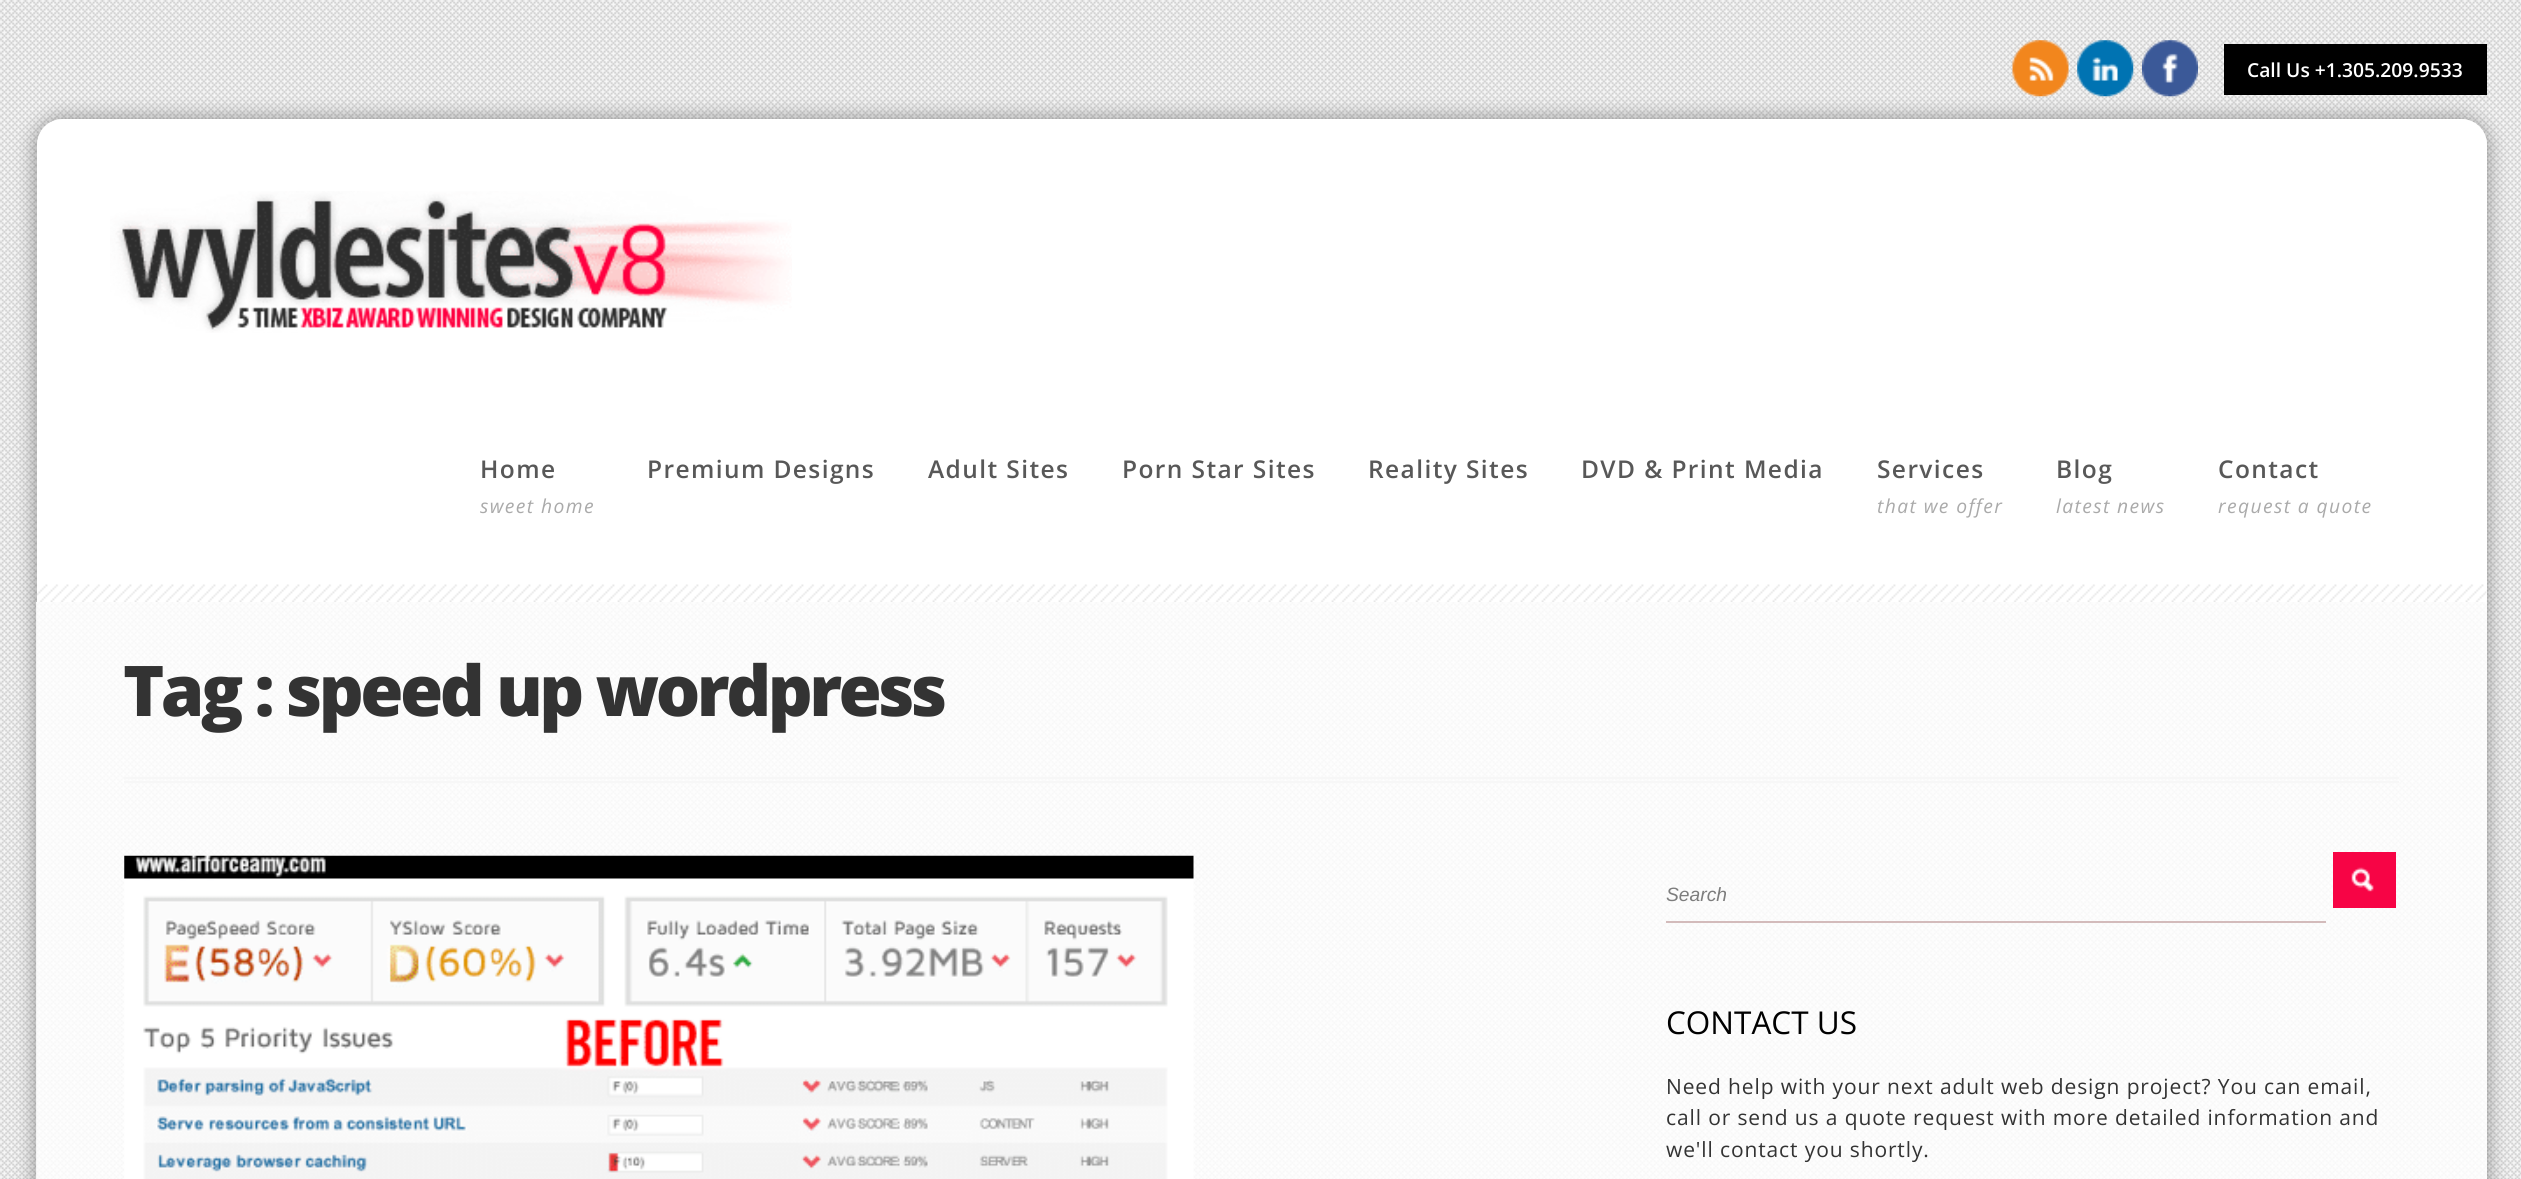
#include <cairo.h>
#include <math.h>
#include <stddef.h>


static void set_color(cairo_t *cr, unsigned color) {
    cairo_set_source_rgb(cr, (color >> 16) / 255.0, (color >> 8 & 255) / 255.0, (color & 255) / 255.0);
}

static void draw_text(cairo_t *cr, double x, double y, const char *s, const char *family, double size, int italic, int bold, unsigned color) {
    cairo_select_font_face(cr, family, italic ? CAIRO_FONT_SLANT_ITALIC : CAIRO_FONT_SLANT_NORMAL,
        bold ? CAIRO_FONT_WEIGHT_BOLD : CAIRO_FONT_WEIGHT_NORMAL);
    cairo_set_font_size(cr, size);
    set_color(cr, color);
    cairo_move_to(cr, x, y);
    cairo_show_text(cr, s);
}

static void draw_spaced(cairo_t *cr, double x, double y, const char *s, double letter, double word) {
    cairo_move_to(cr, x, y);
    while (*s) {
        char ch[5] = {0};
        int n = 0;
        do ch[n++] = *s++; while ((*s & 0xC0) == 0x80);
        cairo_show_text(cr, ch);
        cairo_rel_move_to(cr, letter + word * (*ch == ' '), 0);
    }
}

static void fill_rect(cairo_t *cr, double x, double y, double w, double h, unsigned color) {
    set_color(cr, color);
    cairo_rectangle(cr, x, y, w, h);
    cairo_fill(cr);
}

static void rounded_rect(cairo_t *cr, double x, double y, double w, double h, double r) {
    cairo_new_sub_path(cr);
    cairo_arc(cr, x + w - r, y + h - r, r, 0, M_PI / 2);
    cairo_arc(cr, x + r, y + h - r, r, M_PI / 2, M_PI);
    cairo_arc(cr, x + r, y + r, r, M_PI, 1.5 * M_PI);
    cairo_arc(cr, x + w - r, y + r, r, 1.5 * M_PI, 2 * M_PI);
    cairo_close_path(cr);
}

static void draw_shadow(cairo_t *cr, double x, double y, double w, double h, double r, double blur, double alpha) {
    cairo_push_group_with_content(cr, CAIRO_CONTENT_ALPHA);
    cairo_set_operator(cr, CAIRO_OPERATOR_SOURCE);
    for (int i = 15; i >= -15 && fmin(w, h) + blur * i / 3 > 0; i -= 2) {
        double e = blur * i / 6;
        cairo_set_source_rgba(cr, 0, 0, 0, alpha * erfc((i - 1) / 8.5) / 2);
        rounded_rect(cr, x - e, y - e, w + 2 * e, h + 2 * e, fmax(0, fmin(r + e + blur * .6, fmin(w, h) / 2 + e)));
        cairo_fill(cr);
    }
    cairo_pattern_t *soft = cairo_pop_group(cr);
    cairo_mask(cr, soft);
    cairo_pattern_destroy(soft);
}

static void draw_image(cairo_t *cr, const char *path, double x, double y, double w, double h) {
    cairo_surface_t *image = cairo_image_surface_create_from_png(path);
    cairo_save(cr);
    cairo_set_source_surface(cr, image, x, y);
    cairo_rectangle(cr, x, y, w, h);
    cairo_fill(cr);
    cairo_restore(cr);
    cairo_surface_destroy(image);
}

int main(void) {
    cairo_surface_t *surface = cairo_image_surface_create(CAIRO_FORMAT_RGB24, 2521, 1179);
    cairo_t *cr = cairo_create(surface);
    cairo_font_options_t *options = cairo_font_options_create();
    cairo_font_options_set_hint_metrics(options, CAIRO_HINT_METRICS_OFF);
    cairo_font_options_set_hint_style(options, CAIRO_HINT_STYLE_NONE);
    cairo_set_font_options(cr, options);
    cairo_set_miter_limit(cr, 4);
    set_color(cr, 0xF7F7F7);
    cairo_paint(cr);
    draw_image(cr, "assets/img1.png", 0, 0, 2521, 1179);
    cairo_save(cr);
    cairo_set_fill_rule(cr, CAIRO_FILL_RULE_EVEN_ODD);
    cairo_new_path(cr);
    cairo_move_to(cr, 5, 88);
    cairo_line_to(cr, 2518, 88);
    cairo_line_to(cr, 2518, 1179);
    cairo_line_to(cr, 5, 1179);
    cairo_close_path(cr);
    cairo_move_to(cr, 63, 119);
    cairo_line_to(cr, 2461, 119);
    cairo_curve_to(cr, 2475.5, 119, 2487, 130.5, 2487, 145);
    cairo_line_to(cr, 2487, 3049);
    cairo_line_to(cr, 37, 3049);
    cairo_line_to(cr, 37, 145);
    cairo_curve_to(cr, 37, 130.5, 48.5, 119, 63, 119);
    cairo_close_path(cr);
    cairo_clip(cr);
    set_color(cr, 0x000000);
    draw_shadow(cr, 33, 116, 2457, 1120, 30, 9, 0.3);
    cairo_restore(cr);
    draw_image(cr, "assets/img2.png", 2012, 40, 57, 57);
    draw_image(cr, "assets/img3.png", 2077, 40, 57, 57);
    draw_image(cr, "assets/img4.png", 2142, 40, 56, 57);
    fill_rect(cr, 2224, 44, 263, 51, 0x000000);
    draw_text(cr, 2247, 77, "Call Us +1.305.209.9533", "Open Sans SemiBold", 19.25, 0, 0, 0xFFFFFF);
    cairo_new_path(cr);
    cairo_move_to(cr, 63, 119);
    cairo_line_to(cr, 2461, 119);
    cairo_curve_to(cr, 2475.5, 119, 2487, 130.5, 2487, 145);
    cairo_line_to(cr, 2487, 602);
    cairo_line_to(cr, 37, 602);
    cairo_line_to(cr, 37, 145);
    cairo_curve_to(cr, 37, 130.5, 48.5, 119, 63, 119);
    cairo_close_path(cr);
    cairo_fill(cr);
    draw_image(cr, "assets/img5.png", 37, 584, 2450, 18);
    draw_image(cr, "assets/img6.png", 110, 191, 682, 142);
    cairo_set_font_size(cr, 24.5);
    set_color(cr, 0x585858);
    draw_spaced(cr, 480, 478, "Home", 1.4, 0);
    cairo_select_font_face(cr, "Open Sans", CAIRO_FONT_SLANT_ITALIC, CAIRO_FONT_WEIGHT_NORMAL);
    cairo_set_font_size(cr, 19.25);
    set_color(cr, 0xAAAAAA);
    draw_spaced(cr, 480, 513, "sweet home", 1.4, 0);
    cairo_select_font_face(cr, "Open Sans SemiBold", CAIRO_FONT_SLANT_NORMAL, CAIRO_FONT_WEIGHT_NORMAL);
    cairo_set_font_size(cr, 24.5);
    set_color(cr, 0x585858);
    draw_spaced(cr, 647, 478, "Premium Designs", 1.4, 0);
    draw_spaced(cr, 928, 478, "Adult Sites", 1.4, 0);
    draw_spaced(cr, 1122, 478, "Porn Star Sites", 1.4, 0);
    draw_spaced(cr, 1368, 478, "Reality Sites", 1.4, 0);
    draw_spaced(cr, 1581, 478, "DVD & Print Media", 1.4, 0);
    draw_spaced(cr, 1877, 478, "Services", 1.4, 0);
    cairo_select_font_face(cr, "Open Sans", CAIRO_FONT_SLANT_ITALIC, CAIRO_FONT_WEIGHT_NORMAL);
    cairo_set_font_size(cr, 19.25);
    set_color(cr, 0xAAAAAA);
    draw_spaced(cr, 1877, 513, "that we offer", 1.4, 0);
    cairo_select_font_face(cr, "Open Sans SemiBold", CAIRO_FONT_SLANT_NORMAL, CAIRO_FONT_WEIGHT_NORMAL);
    cairo_set_font_size(cr, 24.5);
    set_color(cr, 0x585858);
    draw_spaced(cr, 2056, 478, "Blog", 1.4, 0);
    cairo_select_font_face(cr, "Open Sans", CAIRO_FONT_SLANT_ITALIC, CAIRO_FONT_WEIGHT_NORMAL);
    cairo_set_font_size(cr, 19.25);
    set_color(cr, 0xAAAAAA);
    draw_spaced(cr, 2056, 513, "latest news", 1.4, 0);
    cairo_select_font_face(cr, "Open Sans SemiBold", CAIRO_FONT_SLANT_NORMAL, CAIRO_FONT_WEIGHT_NORMAL);
    cairo_set_font_size(cr, 24.5);
    set_color(cr, 0x585858);
    draw_spaced(cr, 2218, 478, "Contact", 1.4, 0);
    cairo_select_font_face(cr, "Open Sans", CAIRO_FONT_SLANT_ITALIC, CAIRO_FONT_WEIGHT_NORMAL);
    cairo_set_font_size(cr, 19.25);
    set_color(cr, 0xAAAAAA);
    draw_spaced(cr, 2218, 513, "request a quote", 1.4, 0);
    cairo_set_source_rgba(cr, 1, 1, 1, 0.85);
    cairo_rectangle(cr, 36, 602, 2451, 577);
    cairo_fill(cr);
    fill_rect(cr, 124, 777, 2275, 2, 0xF7F7F7);
    fill_rect(cr, 124, 781, 2275, 2, 0xF7F7F7);
    cairo_select_font_face(cr, "Open Sans ExtraBold", CAIRO_FONT_SLANT_NORMAL, CAIRO_FONT_WEIGHT_NORMAL);
    cairo_set_font_size(cr, 70);
    set_color(cr, 0x333333);
    draw_spaced(cr, 123, 716, "Tag : speed up wordpress", -3.5, 0);
    draw_image(cr, "assets/img7.png", 124, 855, 1070, 324);
    fill_rect(cr, 1666, 921, 660, 2, 0xD3BBBB);
    draw_text(cr, 1666, 901, "Search", "Liberation Sans", 19.25, 1, 0, 0x7D7D7D);
    fill_rect(cr, 2333, 852, 63, 56, 0xF70445);
    draw_image(cr, "assets/img8.png", 2351, 867, 23, 25);
    draw_text(cr, 1666, 1034, "CONTACT US", "Open Sans", 31.5, 0, 0, 0x000000);
    cairo_set_font_size(cr, 21);
    set_color(cr, 0x333333);
    draw_spaced(cr, 1666, 1094, "Need help with your next adult web design project? You can email,", 0.88, 0);
    draw_spaced(cr, 1666, 1125, "call or send us a quote request with more detailed information and", 0.88, 0);
    draw_spaced(cr, 1666, 1157, "we'll contact you shortly.", 0.88, 0);
    cairo_surface_write_to_png(surface, "output.png");
    cairo_font_options_destroy(options);
    cairo_destroy(cr);
    cairo_surface_destroy(surface);
    return 0;
}
